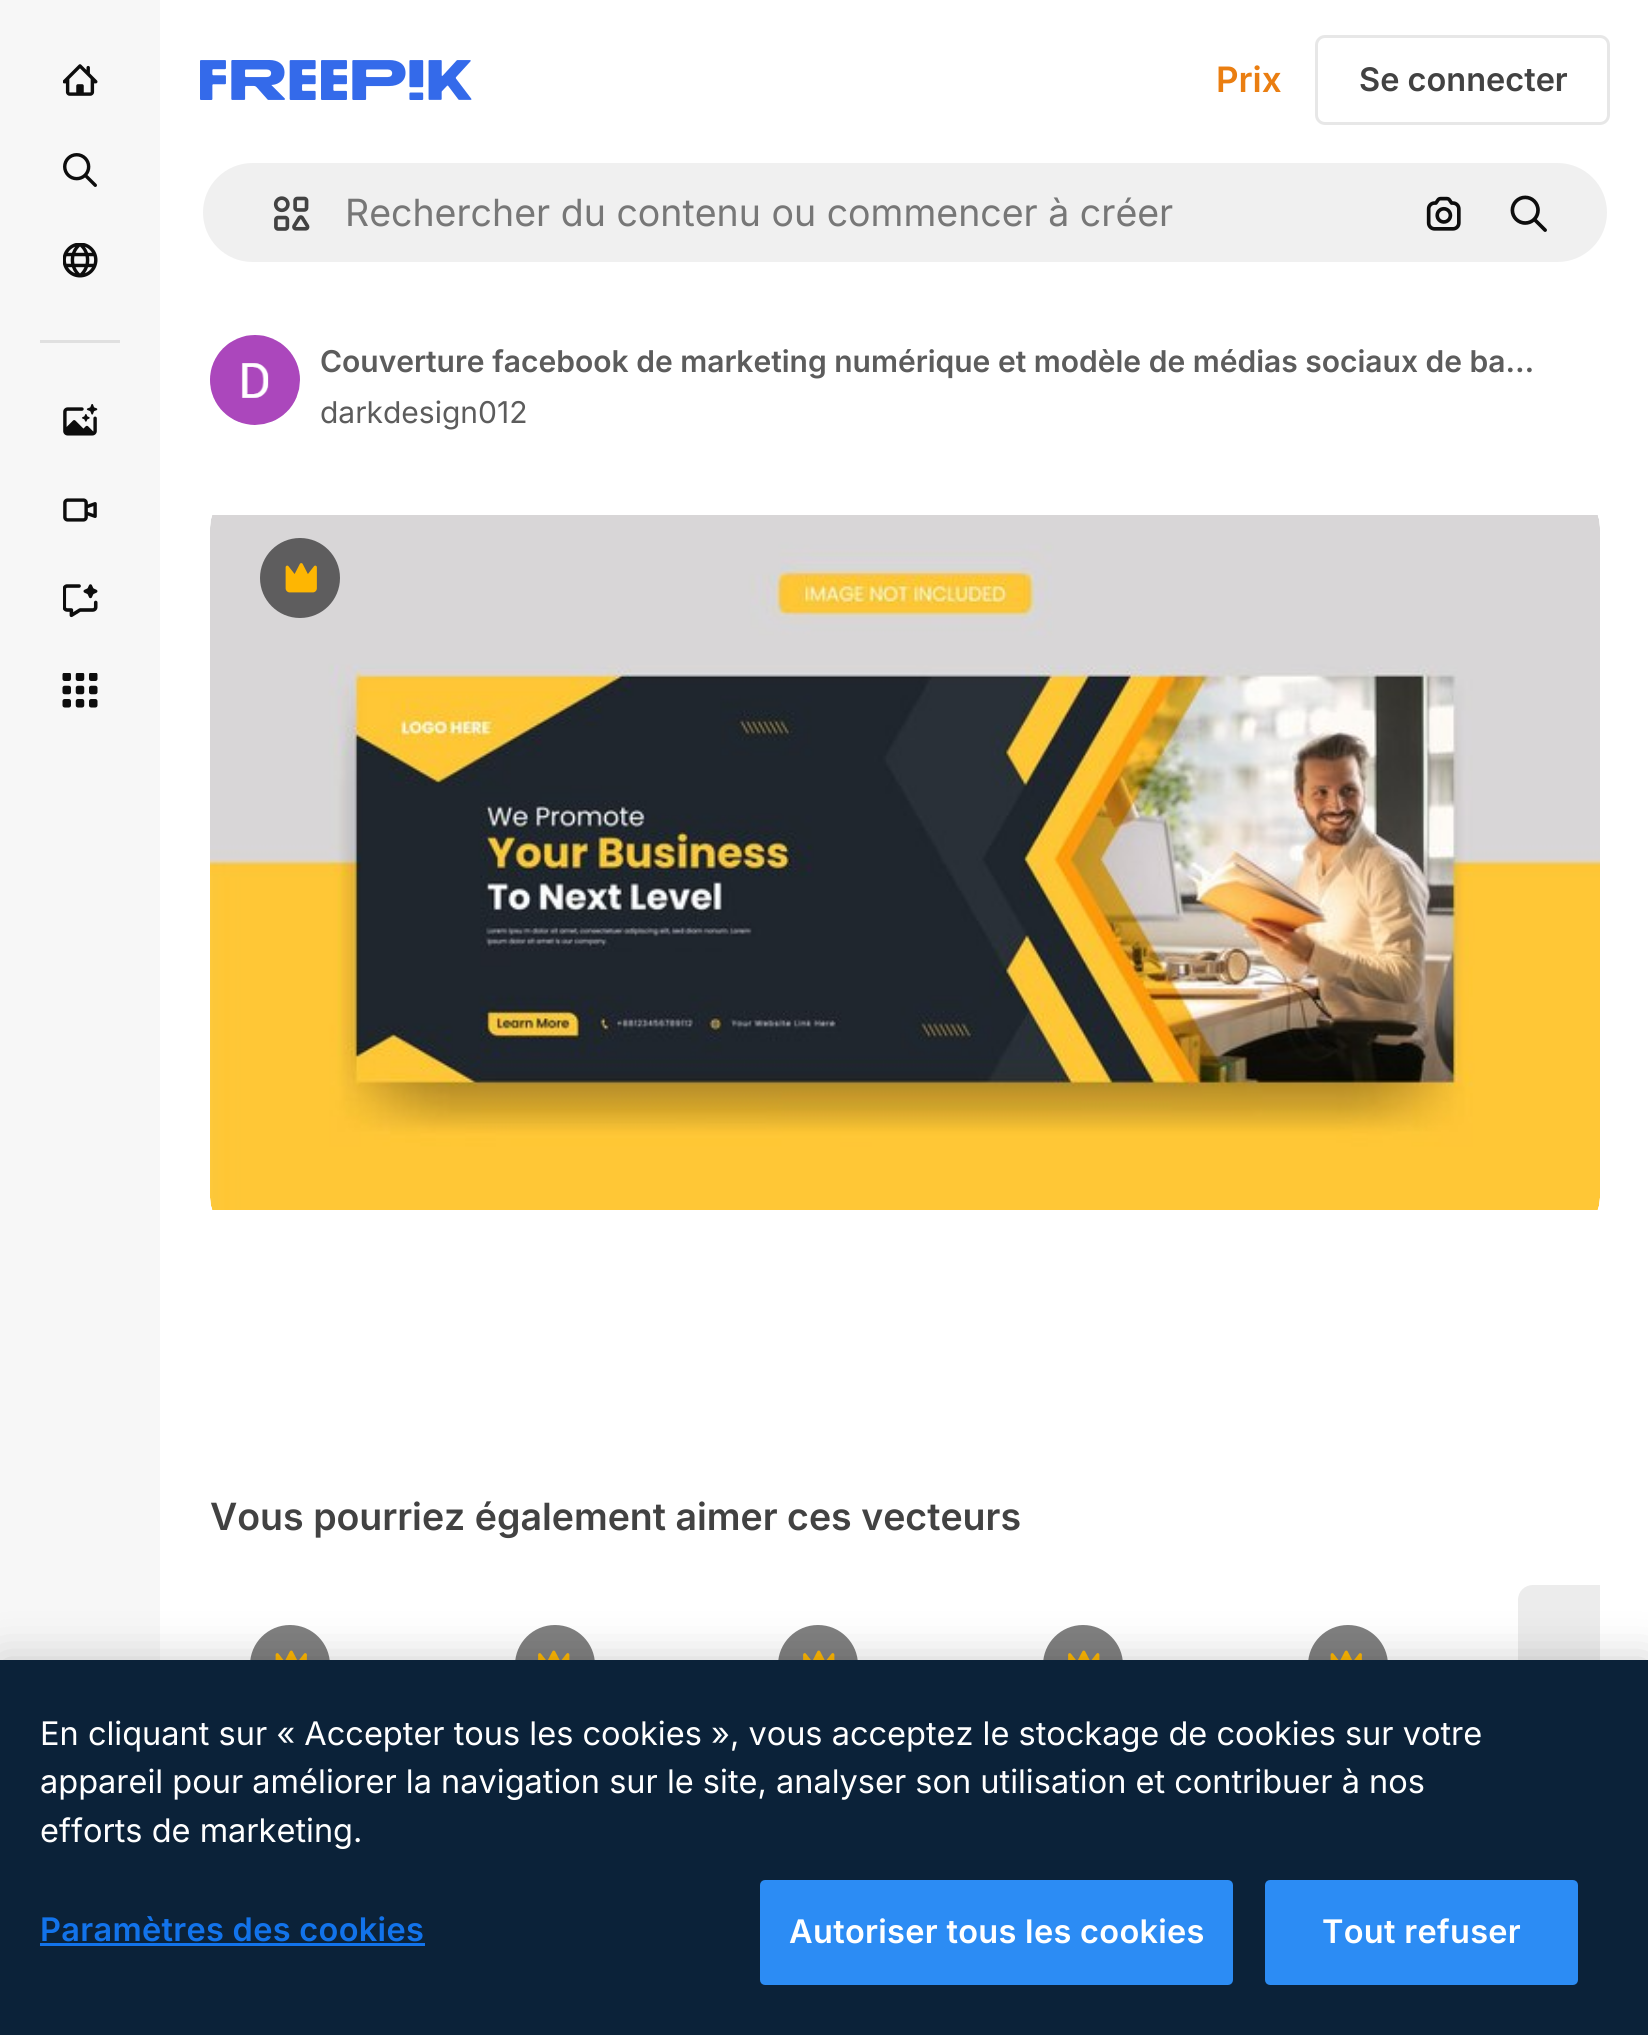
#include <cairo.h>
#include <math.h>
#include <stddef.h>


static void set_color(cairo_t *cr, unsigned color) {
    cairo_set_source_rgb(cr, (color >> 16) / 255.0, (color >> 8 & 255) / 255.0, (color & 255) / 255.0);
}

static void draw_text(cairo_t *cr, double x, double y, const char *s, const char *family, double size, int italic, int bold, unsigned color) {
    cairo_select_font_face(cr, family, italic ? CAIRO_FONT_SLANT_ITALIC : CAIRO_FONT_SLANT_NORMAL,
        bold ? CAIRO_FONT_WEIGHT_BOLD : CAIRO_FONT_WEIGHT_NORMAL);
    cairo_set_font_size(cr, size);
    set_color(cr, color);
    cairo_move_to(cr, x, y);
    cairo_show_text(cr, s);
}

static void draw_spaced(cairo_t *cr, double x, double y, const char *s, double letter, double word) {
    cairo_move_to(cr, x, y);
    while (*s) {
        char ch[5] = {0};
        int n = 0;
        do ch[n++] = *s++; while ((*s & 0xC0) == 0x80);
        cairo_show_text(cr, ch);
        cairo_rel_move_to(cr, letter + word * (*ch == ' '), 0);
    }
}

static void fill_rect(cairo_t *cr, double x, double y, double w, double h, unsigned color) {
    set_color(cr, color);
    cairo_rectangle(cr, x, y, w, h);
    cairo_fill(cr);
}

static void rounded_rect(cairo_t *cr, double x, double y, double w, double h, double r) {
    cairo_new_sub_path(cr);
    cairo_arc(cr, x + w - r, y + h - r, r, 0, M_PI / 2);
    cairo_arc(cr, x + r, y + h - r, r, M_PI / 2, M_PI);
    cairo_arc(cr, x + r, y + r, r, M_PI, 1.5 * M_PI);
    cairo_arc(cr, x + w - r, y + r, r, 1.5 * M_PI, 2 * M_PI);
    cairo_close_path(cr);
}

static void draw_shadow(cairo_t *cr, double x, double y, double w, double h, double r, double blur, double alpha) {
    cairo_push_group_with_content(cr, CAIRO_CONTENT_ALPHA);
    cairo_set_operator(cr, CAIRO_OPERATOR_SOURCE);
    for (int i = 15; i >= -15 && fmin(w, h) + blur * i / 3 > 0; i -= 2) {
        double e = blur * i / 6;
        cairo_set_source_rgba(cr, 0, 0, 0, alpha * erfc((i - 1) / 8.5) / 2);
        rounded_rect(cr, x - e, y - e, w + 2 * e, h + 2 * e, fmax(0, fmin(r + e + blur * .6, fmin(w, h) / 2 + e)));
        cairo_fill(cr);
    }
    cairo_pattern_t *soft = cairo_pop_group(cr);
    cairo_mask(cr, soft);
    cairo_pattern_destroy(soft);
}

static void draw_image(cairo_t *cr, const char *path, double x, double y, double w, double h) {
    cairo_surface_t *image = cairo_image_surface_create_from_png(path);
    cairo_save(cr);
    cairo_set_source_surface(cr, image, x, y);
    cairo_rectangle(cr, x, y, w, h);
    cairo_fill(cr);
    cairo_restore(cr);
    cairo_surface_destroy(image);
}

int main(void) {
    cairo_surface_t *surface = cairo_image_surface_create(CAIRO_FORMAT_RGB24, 1648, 2035);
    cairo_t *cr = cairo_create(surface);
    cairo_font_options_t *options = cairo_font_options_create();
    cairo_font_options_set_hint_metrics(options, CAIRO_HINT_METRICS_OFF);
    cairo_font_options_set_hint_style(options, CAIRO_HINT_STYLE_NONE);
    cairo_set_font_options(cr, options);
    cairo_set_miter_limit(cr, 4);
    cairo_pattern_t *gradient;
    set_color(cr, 0xFFFFFF);
    cairo_paint(cr);
    fill_rect(cr, 0, 0, 160, 1660, 0xF7F7F7);
    draw_image(cr, "assets/img1.png", 63, 64, 35, 32);
    draw_image(cr, "assets/img2.png", 63, 153, 34, 34);
    draw_image(cr, "assets/img3.png", 63, 243, 35, 35);
    fill_rect(cr, 40, 340, 80, 3, 0xE0E0E0);
    draw_image(cr, "assets/img4.png", 63, 404, 35, 32);
    draw_image(cr, "assets/img5.png", 63, 498, 34, 24);
    draw_image(cr, "assets/img6.png", 63, 584, 35, 34);
    draw_image(cr, "assets/img7.png", 62, 673, 36, 35);
    draw_image(cr, "assets/img8.png", 200, 60, 272, 40);
    draw_text(cr, 1216, 92, "Prix", "Inter SemiBold", 35, 0, 0, 0xEA7E11);
    rounded_rect(cr, 1316.5, 36.5, 292, 87, 8.5);
    set_color(cr, 0xE7E7E7);
    cairo_set_line_width(cr, 3);
    cairo_stroke(cr);
    draw_text(cr, 1359, 91, "Se connecter", "Inter SemiBold", 32.5, 0, 0, 0x424242);
    set_color(cr, 0xF0F0F0);
    rounded_rect(cr, 201.5, 161.5, 1407, 102, 51);
    cairo_fill_preserve(cr);
    set_color(cr, 0xFFFFFF);
    cairo_stroke(cr);
    draw_image(cr, "assets/img9.png", 273, 196, 37, 35);
    draw_text(cr, 345, 226, "Rechercher du contenu ou commencer à créer", "Inter", 37.5, 0, 0, 0x777777);
    draw_image(cr, "assets/img10.png", 1426, 196, 35, 35);
    draw_image(cr, "assets/img11.png", 1510, 195, 37, 37);
    draw_image(cr, "assets/img12.png", 210, 335, 90, 90);
    draw_text(cr, 320, 372, "Couverture facebook de marketing numérique et modèle de médias sociaux de ba…", "Inter SemiBold", 30, 0, 0, 0x5C5C5C);
    draw_text(cr, 320, 423, "darkdesign012", "Inter", 30, 0, 0, 0x5C5C5C);
    draw_image(cr, "assets/img13.png", 210, 515, 1390, 695);
    set_color(cr, 0x5E5D5E);
    cairo_arc(cr, 300, 578, 40, 0, 2 * M_PI);
    cairo_fill(cr);
    draw_image(cr, "assets/img14.png", 285, 563, 32, 30);
    draw_text(cr, 210, 1530, "Vous pourriez également aimer ces vecteurs", "Inter SemiBold", 37.5, 0, 0, 0x424242);
    set_color(cr, 0x808080);
    cairo_new_path(cr);
    cairo_arc(cr, 290, 1665, 40, 0, 2 * M_PI);
    cairo_fill(cr);
    draw_image(cr, "assets/img15.png", 275, 1650, 32, 10);
    cairo_arc(cr, 555, 1665, 40, 0, 2 * M_PI);
    cairo_fill(cr);
    draw_image(cr, "assets/img16.png", 538, 1650, 32, 10);
    cairo_arc(cr, 818, 1665, 40, 0, 2 * M_PI);
    cairo_fill(cr);
    draw_image(cr, "assets/img16.png", 803, 1650, 32, 10);
    cairo_arc(cr, 1083, 1665, 40, 0, 2 * M_PI);
    cairo_fill(cr);
    draw_image(cr, "assets/img16.png", 1068, 1650, 32, 10);
    cairo_arc(cr, 1348, 1665, 40, 0, 2 * M_PI);
    cairo_fill(cr);
    draw_image(cr, "assets/img15.png", 1330, 1650, 32, 10);
    gradient = cairo_pattern_create_linear(1554, 1484, 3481, 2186);
    cairo_pattern_add_color_stop_rgba(gradient, 0.08, 0.925, 0.925, 0.925, 1);
    cairo_pattern_add_color_stop_rgba(gradient, 0.18, 0.961, 0.961, 0.961, 1);
    cairo_pattern_add_color_stop_rgba(gradient, 0.33, 0.925, 0.925, 0.925, 1);
    cairo_set_source(cr, gradient);
    cairo_pattern_destroy(gradient);
    cairo_new_path(cr);
    cairo_move_to(cr, 1533, 1585);
    cairo_line_to(cr, 1600, 1585);
    cairo_line_to(cr, 1600, 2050);
    cairo_line_to(cr, 1533, 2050);
    cairo_curve_to(cr, 1524.5, 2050, 1518, 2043.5, 1518, 2035);
    cairo_line_to(cr, 1518, 1600);
    cairo_curve_to(cr, 1518, 1591.5, 1524.5, 1585, 1533, 1585);
    cairo_close_path(cr);
    cairo_fill(cr);
    set_color(cr, 0x000000);
    draw_shadow(cr, 0, 1660, 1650, 375, 0, 22.5, 0.2);
    fill_rect(cr, 0, 1660, 1648, 375, 0x0B2239);
    draw_text(cr, 40, 1745, "En cliquant sur « Accepter tous les cookies », vous acceptez le stockage de cookies sur votre", "Inter", 32.5, 0, 0, 0xFFFFFF);
    draw_text(cr, 40, 1793, "appareil pour améliorer la navigation sur le site, analyser son utilisation et contribuer à nos", "Inter", 32.5, 0, 0, 0xFFFFFF);
    draw_text(cr, 40, 1842, "efforts de marketing.", "Inter", 32.5, 0, 0, 0xFFFFFF);
    cairo_select_font_face(cr, "Inter SemiBold", CAIRO_FONT_SLANT_NORMAL, CAIRO_FONT_WEIGHT_NORMAL);
    set_color(cr, 0x1273EB);
    draw_spaced(cr, 40, 1941, "Paramètres des cookies", 0.3, 0);
    fill_rect(cr, 40, 1943, 385, 3, 0x1273EB);
    set_color(cr, 0x2C8CF4);
    rounded_rect(cr, 761.5, 1881.5, 470, 102, 3.5);
    cairo_fill_preserve(cr);
    cairo_stroke(cr);
    set_color(cr, 0xFFFFFF);
    draw_spaced(cr, 789, 1943, "Autoriser tous les cookies", 0.3, 0);
    set_color(cr, 0x2C8CF4);
    rounded_rect(cr, 1266.5, 1881.5, 310, 102, 3.5);
    cairo_fill_preserve(cr);
    cairo_stroke(cr);
    set_color(cr, 0xFFFFFF);
    draw_spaced(cr, 1322, 1943, "Tout refuser", 0.3, 0);
    cairo_surface_write_to_png(surface, "output.png");
    cairo_font_options_destroy(options);
    cairo_destroy(cr);
    cairo_surface_destroy(surface);
    return 0;
}
